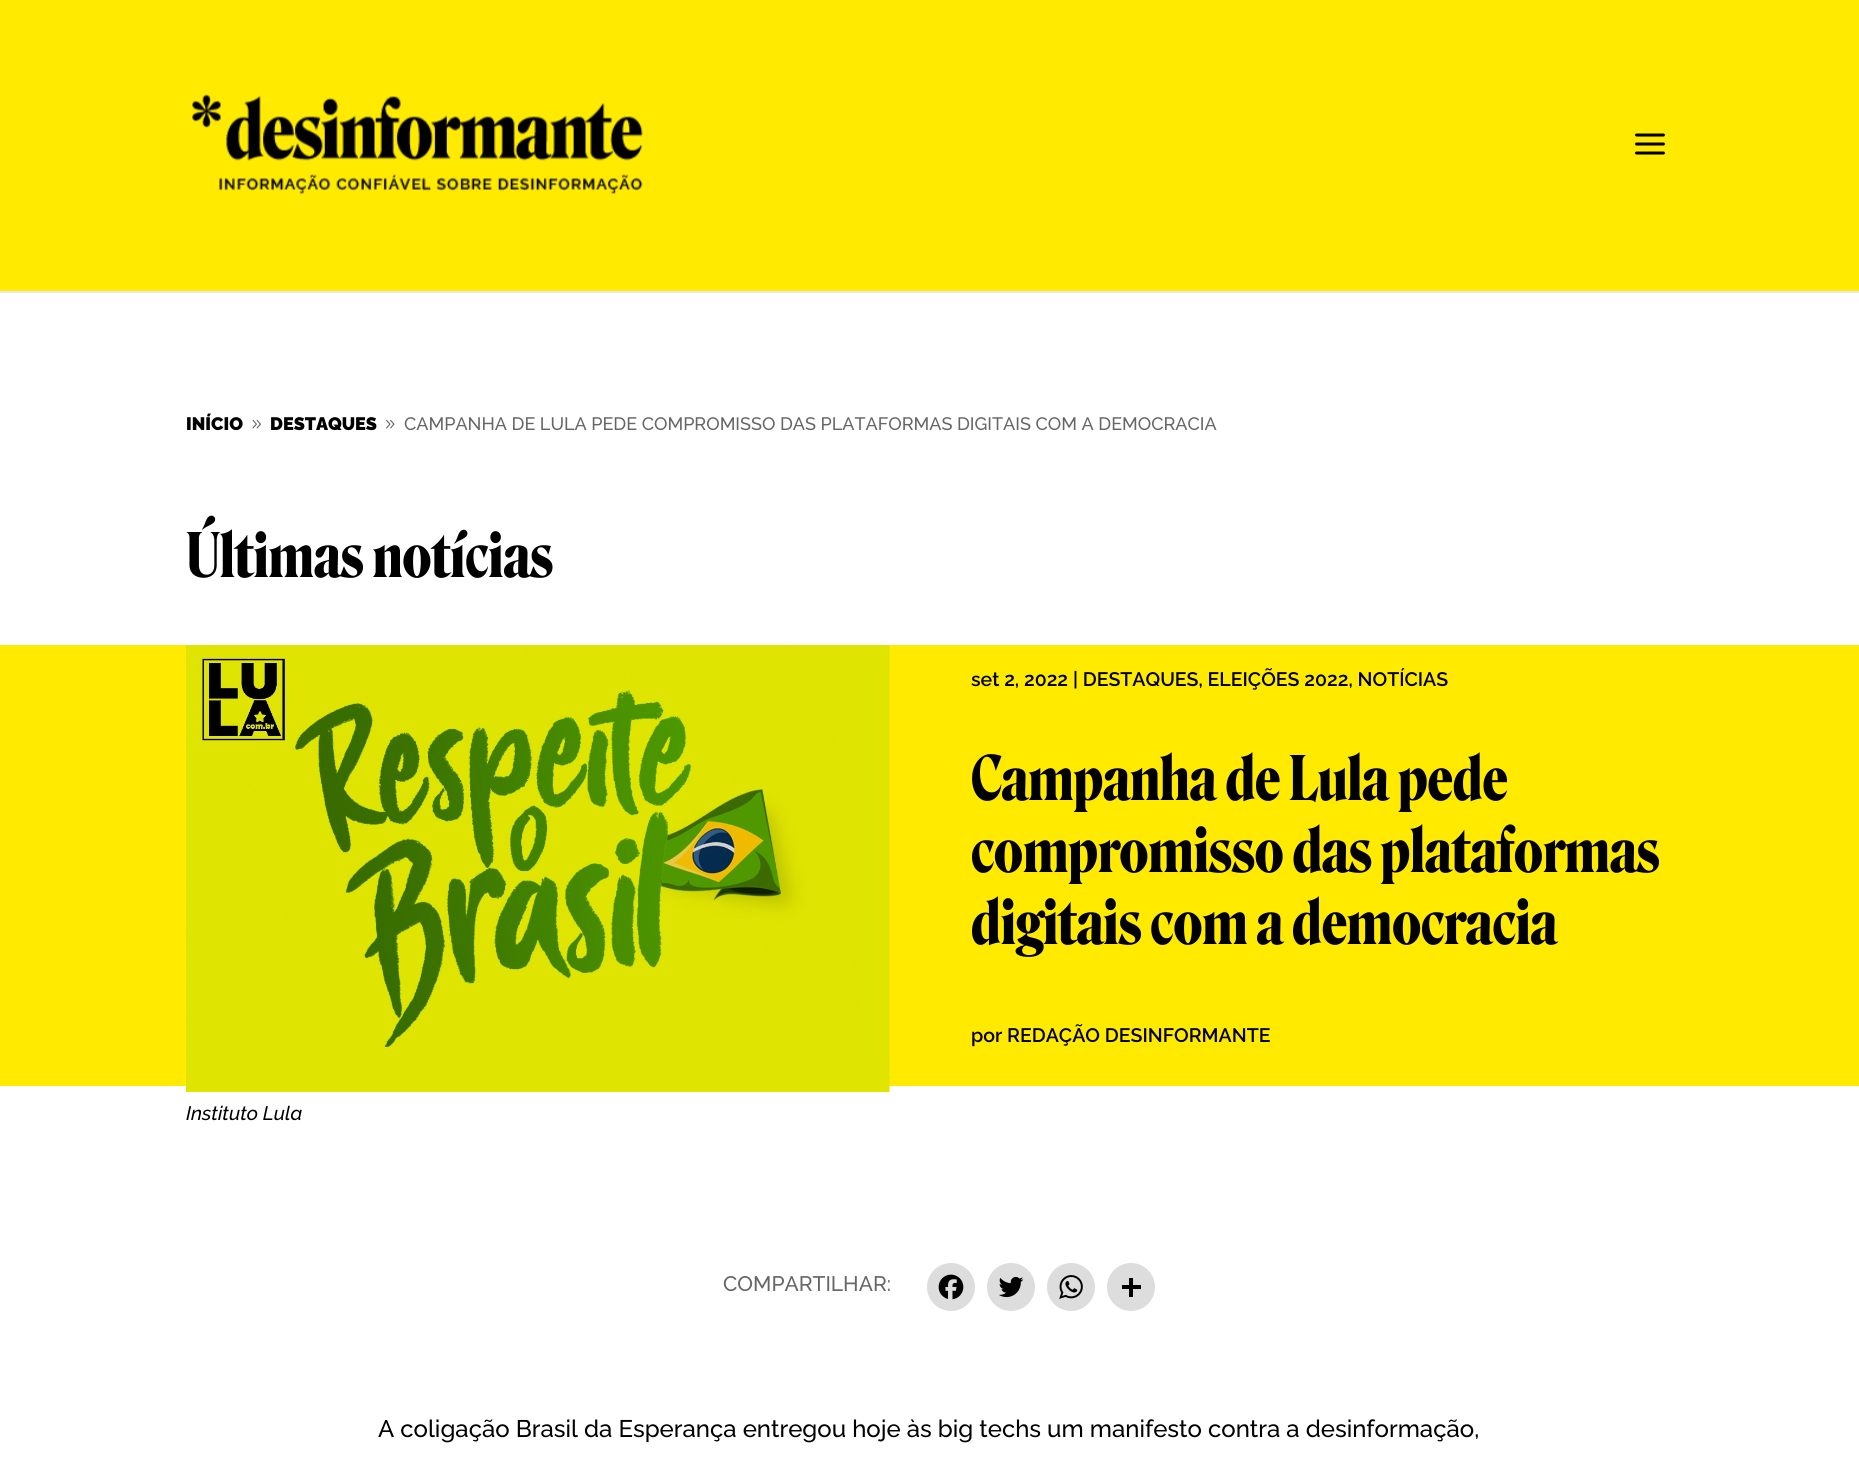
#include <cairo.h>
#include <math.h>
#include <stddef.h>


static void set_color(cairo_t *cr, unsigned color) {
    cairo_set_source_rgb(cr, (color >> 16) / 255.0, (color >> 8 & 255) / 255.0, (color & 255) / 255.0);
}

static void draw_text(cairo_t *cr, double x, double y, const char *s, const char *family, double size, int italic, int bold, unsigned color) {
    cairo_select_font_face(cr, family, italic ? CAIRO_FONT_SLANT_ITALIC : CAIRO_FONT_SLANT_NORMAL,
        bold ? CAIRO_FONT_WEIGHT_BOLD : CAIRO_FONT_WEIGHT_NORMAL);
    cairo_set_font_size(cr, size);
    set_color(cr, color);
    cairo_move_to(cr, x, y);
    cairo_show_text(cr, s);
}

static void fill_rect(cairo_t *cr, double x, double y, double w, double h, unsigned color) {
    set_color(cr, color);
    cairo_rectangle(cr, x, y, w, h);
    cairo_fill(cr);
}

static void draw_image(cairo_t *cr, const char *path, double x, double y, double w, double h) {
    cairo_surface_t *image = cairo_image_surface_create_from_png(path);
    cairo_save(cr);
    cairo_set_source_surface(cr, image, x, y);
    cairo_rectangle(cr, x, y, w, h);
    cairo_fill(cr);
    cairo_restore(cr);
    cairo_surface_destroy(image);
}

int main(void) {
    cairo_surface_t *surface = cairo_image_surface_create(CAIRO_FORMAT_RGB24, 1859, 1472);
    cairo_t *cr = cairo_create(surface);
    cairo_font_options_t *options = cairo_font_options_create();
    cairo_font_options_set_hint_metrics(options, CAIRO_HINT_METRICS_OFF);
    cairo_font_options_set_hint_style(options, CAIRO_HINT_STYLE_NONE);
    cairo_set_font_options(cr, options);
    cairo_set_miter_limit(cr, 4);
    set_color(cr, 0xFFFFFF);
    cairo_paint(cr);
    fill_rect(cr, 0, 291, 1859, 2, 0xE6E6E6);
    fill_rect(cr, 0, 0, 1859, 291, 0xFFEA00);
    draw_image(cr, "assets/img1.png", 192, 94, 451, 100);
    draw_image(cr, "assets/img2.png", 1635, 133, 30, 22);
    draw_text(cr, 186, 430, "INÍCIO", "Raleway Thin", 18, 0, 0, 0x000000);
    draw_image(cr, "assets/img3.png", 252, 419, 9, 10);
    draw_text(cr, 270, 430, "DESTAQUES", "Raleway Thin", 18, 0, 0, 0x000000);
    draw_image(cr, "assets/img4.png", 386, 419, 9, 10);
    draw_text(cr, 404, 430, "CAMPANHA DE LULA PEDE COMPROMISSO DAS PLATAFORMAS DIGITAIS COM A DEMOCRACIA", "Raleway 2 Thin", 18, 0, 0, 0x666666);
    draw_text(cr, 186, 577, "Últimas notícias", "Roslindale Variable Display", 60, 0, 1, 0x000000);
    fill_rect(cr, 0, 645, 1859, 441, 0xFFEA00);
    draw_text(cr, 971, 686, "set 2, 2022 | DESTAQUES, ELEIÇÕES 2022, NOTÍCIAS", "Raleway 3 Thin", 19.5, 0, 0, 0x000000);
    draw_text(cr, 971, 800, "Campanha de Lula pede", "Roslindale Variable Display", 60, 0, 1, 0x000000);
    draw_text(cr, 971, 872, "compromisso das plataformas", "Roslindale Variable Display", 60, 0, 1, 0x000000);
    draw_text(cr, 971, 944, "digitais com a democracia", "Roslindale Variable Display", 60, 0, 1, 0x000000);
    draw_text(cr, 971, 1042, "por REDAÇÃO DESINFORMANTE", "Raleway 3 Thin", 19.5, 0, 0, 0x000000);
    draw_image(cr, "assets/img5.png", 186, 645, 704, 447);
    draw_text(cr, 186, 1120, "Instituto Lula", "Raleway Thin", 19.5, 1, 0, 0x000000);
    draw_text(cr, 723, 1291, "COMPARTILHAR:", "Raleway 2 Thin", 21, 0, 0, 0x666666);
    set_color(cr, 0xDDDDDD);
    cairo_new_path(cr);
    cairo_arc(cr, 951, 1287, 24, 0, 2 * M_PI);
    cairo_fill(cr);
    draw_image(cr, "assets/img6.png", 938, 1274, 26, 26);
    cairo_arc(cr, 1011, 1287, 24, 0, 2 * M_PI);
    cairo_fill(cr);
    draw_image(cr, "assets/img7.png", 998, 1276, 26, 22);
    cairo_arc(cr, 1071, 1287, 24, 0, 2 * M_PI);
    cairo_fill(cr);
    draw_image(cr, "assets/img8.png", 1059, 1275, 24, 24);
    cairo_arc(cr, 1131, 1287, 24, 0, 2 * M_PI);
    cairo_fill(cr);
    fill_rect(cr, 1129, 1278, 4, 19, 0x000000);
    fill_rect(cr, 1122, 1285, 19, 4, 0x000000);
    draw_text(cr, 378, 1437, "A coligação Brasil da Esperança entregou hoje às big techs um manifesto contra a desinformação,", "Raleway 2 Thin", 24, 0, 0, 0x000000);
    cairo_surface_write_to_png(surface, "output.png");
    cairo_font_options_destroy(options);
    cairo_destroy(cr);
    cairo_surface_destroy(surface);
    return 0;
}
